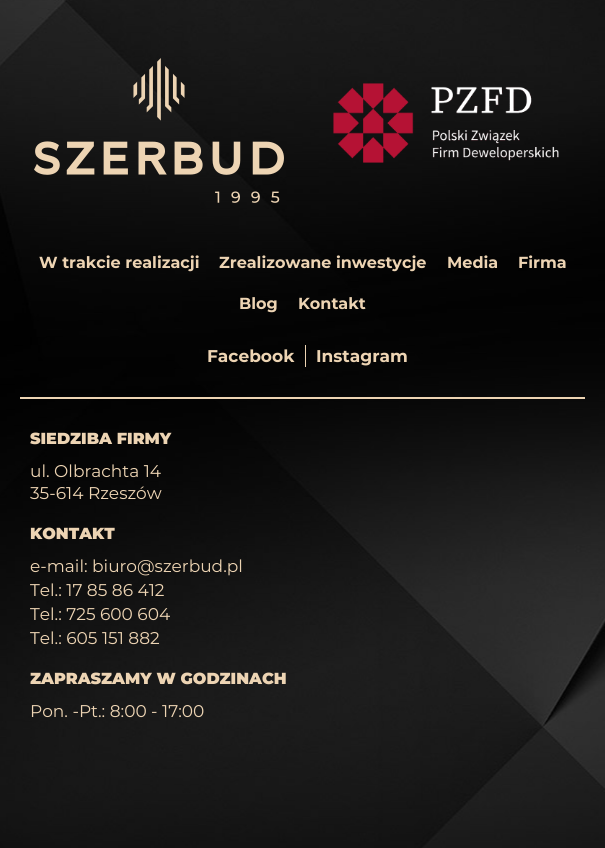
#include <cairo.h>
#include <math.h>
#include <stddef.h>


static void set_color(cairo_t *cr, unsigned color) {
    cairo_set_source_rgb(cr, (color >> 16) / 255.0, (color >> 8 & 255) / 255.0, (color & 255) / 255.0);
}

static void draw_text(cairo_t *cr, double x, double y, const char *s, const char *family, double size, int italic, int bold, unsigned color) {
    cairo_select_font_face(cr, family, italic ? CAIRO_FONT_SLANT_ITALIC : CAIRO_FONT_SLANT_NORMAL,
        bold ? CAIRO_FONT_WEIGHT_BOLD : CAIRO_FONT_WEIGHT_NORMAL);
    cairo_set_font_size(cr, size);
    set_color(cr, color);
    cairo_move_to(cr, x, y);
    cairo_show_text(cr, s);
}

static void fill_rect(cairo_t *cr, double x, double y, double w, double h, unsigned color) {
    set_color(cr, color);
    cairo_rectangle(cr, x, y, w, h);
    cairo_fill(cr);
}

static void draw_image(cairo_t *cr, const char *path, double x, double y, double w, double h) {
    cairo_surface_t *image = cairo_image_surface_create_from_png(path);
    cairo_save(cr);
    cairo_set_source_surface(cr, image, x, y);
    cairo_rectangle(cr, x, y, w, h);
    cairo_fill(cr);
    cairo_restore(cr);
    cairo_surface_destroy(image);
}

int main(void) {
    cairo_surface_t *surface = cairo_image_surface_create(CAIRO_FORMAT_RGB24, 605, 848);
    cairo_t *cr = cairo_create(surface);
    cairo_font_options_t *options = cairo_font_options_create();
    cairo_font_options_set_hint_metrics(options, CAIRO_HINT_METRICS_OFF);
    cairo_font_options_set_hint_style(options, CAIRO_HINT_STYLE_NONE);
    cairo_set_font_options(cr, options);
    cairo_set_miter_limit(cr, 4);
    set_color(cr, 0xFFFFFF);
    cairo_paint(cr);
    draw_image(cr, "assets/img1.png", 0, 0, 605, 848);
    draw_image(cr, "assets/img2.png", 34, 58, 250, 145);
    draw_image(cr, "assets/img3.png", 333, 83, 226, 80);
    draw_text(cr, 39, 268, "W trakcie realizacji", "Montserrat", 16, 0, 1, 0xEDD4B3);
    draw_text(cr, 219, 268, "Zrealizowane inwestycje", "Montserrat", 16, 0, 1, 0xEDD4B3);
    draw_text(cr, 447, 268, "Media", "Montserrat", 16, 0, 1, 0xEDD4B3);
    draw_text(cr, 518, 268, "Firma", "Montserrat", 16, 0, 1, 0xEDD4B3);
    draw_text(cr, 239, 309, "Blog", "Montserrat", 16, 0, 1, 0xEDD4B3);
    draw_text(cr, 298, 309, "Kontakt", "Montserrat", 16, 0, 1, 0xEDD4B3);
    draw_text(cr, 207, 362, "Facebook", "Montserrat", 17, 0, 1, 0xEDD4B3);
    fill_rect(cr, 305, 345, 1, 22, 0xEDD4B3);
    draw_text(cr, 316, 362, "Instagram", "Montserrat", 17, 0, 1, 0xEDD4B3);
    fill_rect(cr, 20, 397, 565, 2, 0xEDD4B3);
    draw_text(cr, 30, 444, "SIEDZIBA FIRMY", "Montserrat Black", 16, 0, 0, 0xEDD4B3);
    draw_text(cr, 30, 477, "ul. Olbrachta 14", "Montserrat", 17, 0, 0, 0xEDD4B3);
    draw_text(cr, 30, 499, "35-614 Rzeszów", "Montserrat", 17, 0, 0, 0xEDD4B3);
    draw_text(cr, 30, 539, "KONTAKT", "Montserrat Black", 16, 0, 0, 0xEDD4B3);
    draw_text(cr, 30, 572, "e-mail: biuro@szerbud.pl", "Montserrat", 17, 0, 0, 0xEDD4B3);
    draw_text(cr, 30, 596, "Tel.: 17 85 86 412", "Montserrat", 17, 0, 0, 0xEDD4B3);
    draw_text(cr, 30, 620, "Tel.: 725 600 604", "Montserrat", 17, 0, 0, 0xEDD4B3);
    draw_text(cr, 30, 644, "Tel.: 605 151 882", "Montserrat", 17, 0, 0, 0xEDD4B3);
    draw_text(cr, 30, 684, "ZAPRASZAMY W GODZINACH", "Montserrat Black", 16, 0, 0, 0xEDD4B3);
    draw_text(cr, 30, 717, "Pon. -Pt.: 8:00 - 17:00", "Montserrat", 17, 0, 0, 0xEDD4B3);
    cairo_surface_write_to_png(surface, "output.png");
    cairo_font_options_destroy(options);
    cairo_destroy(cr);
    cairo_surface_destroy(surface);
    return 0;
}
